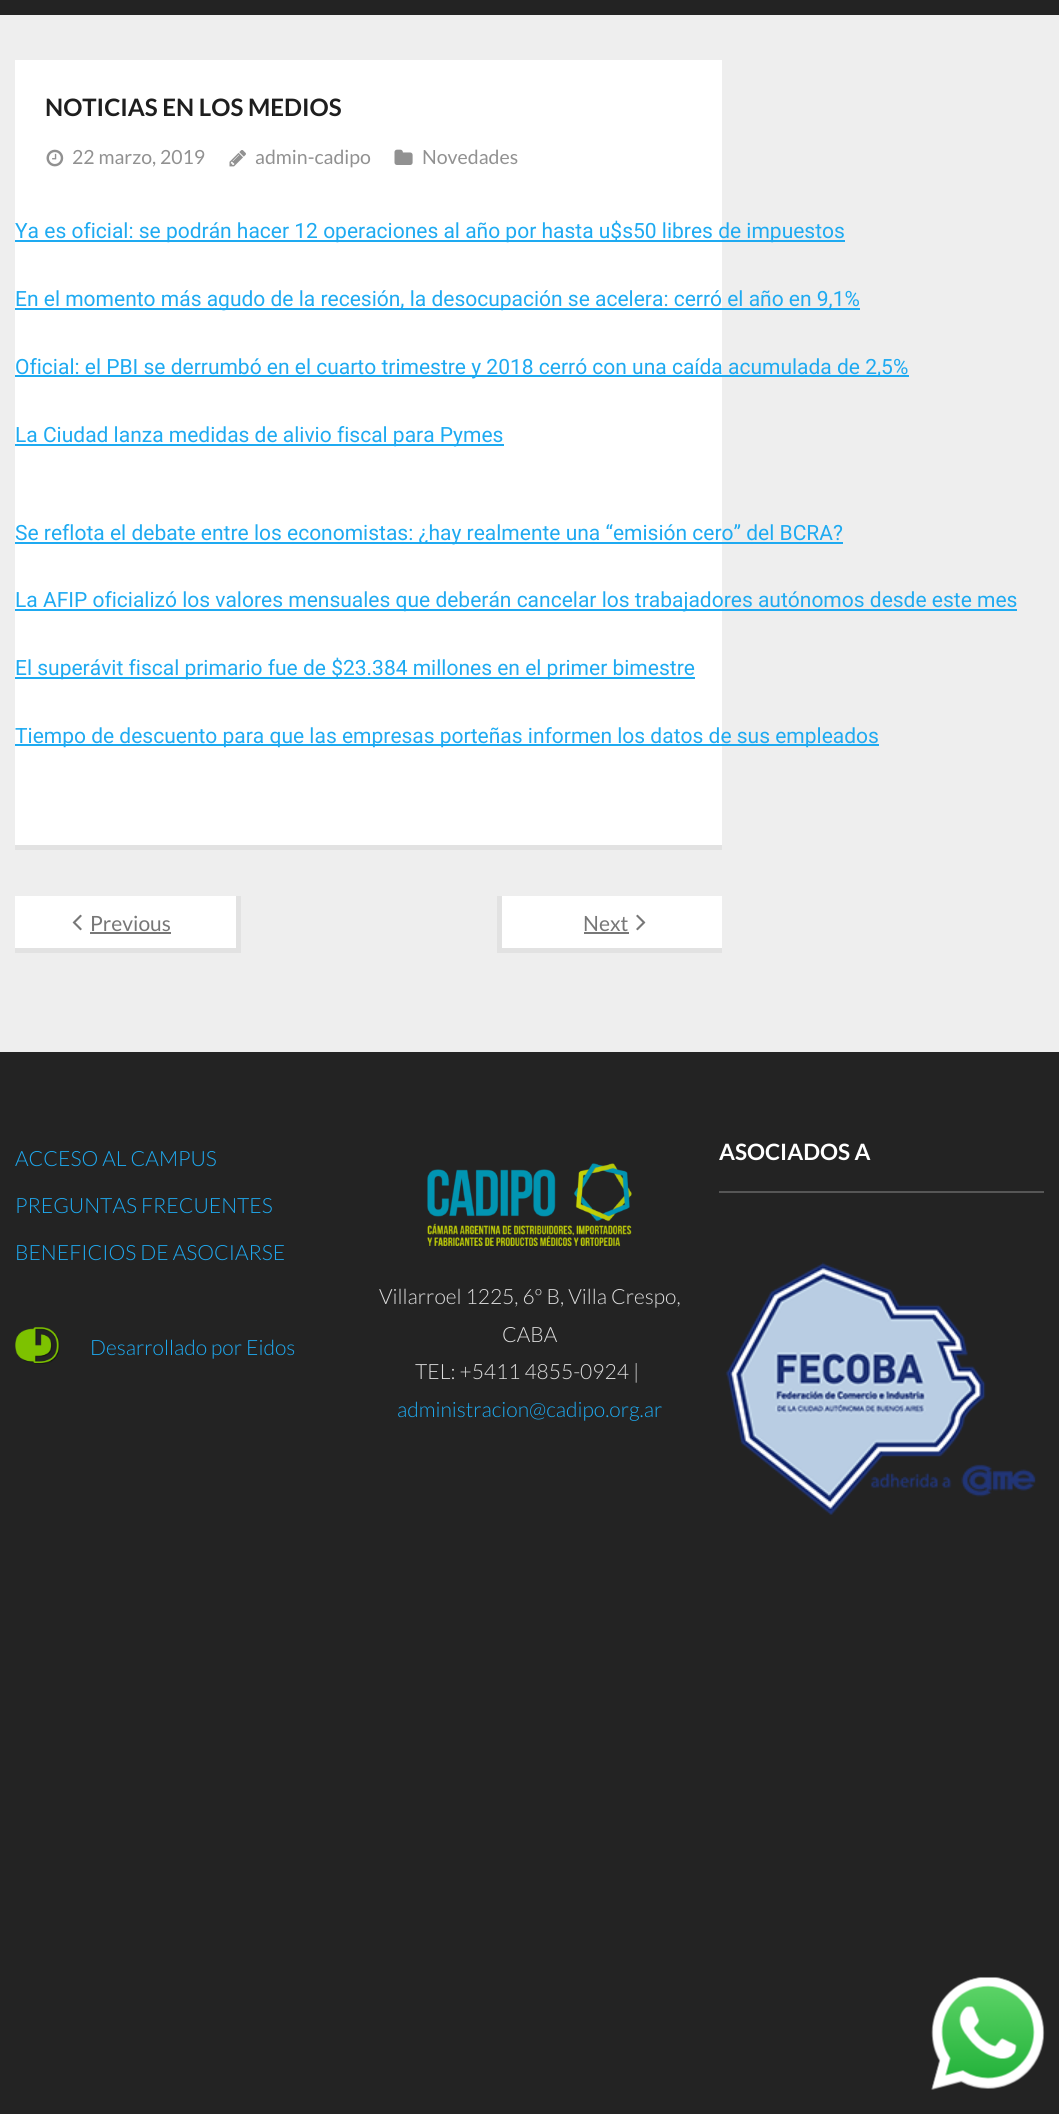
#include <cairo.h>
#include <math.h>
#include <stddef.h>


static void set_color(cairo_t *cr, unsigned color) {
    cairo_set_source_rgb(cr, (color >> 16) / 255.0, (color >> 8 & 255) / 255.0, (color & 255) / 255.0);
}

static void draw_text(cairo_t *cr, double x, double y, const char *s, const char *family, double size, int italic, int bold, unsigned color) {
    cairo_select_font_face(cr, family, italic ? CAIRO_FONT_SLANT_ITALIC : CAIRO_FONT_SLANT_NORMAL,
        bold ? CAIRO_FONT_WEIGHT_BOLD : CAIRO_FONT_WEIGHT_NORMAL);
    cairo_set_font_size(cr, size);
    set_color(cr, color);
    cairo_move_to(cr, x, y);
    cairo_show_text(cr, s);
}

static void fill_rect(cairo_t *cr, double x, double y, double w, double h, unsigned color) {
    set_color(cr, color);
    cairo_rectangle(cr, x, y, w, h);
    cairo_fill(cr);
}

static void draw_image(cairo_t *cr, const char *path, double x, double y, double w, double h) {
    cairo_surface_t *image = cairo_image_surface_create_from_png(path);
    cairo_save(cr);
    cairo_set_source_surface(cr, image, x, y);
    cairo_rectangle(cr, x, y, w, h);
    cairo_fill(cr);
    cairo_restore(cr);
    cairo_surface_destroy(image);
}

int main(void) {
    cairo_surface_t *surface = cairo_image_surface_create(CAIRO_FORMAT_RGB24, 1059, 2114);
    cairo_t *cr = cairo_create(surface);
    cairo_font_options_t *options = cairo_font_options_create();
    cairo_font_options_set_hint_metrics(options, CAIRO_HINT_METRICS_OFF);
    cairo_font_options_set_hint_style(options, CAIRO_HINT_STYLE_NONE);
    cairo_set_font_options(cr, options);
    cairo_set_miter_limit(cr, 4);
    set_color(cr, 0xEEEEEE);
    cairo_paint(cr);
    fill_rect(cr, 0, 0, 1059, 15, 0x232323);
    fill_rect(cr, 15, 60, 707, 785, 0xFFFFFF);
    fill_rect(cr, 15, 845, 707, 5, 0xE2E2E2);
    draw_text(cr, 45, 116, "NOTICIAS EN LOS MEDIOS", "Lato", 24, 0, 1, 0x1E1E1E);
    draw_image(cr, "assets/img1.png", 46, 149, 18, 18);
    draw_text(cr, 72, 164, "22 marzo, 2019", "Lato", 19.5, 0, 0, 0x919191);
    draw_image(cr, "assets/img2.png", 229, 150, 17, 17);
    draw_text(cr, 255, 164, "admin-cadipo", "Lato", 19.5, 0, 0, 0x919191);
    draw_image(cr, "assets/img3.png", 394, 149, 19, 16);
    draw_text(cr, 422, 164, "Novedades", "Lato", 19.5, 0, 0, 0x919191);
    fill_rect(cr, 15, 240, 830, 2, 0x1EAAF1);
    draw_text(cr, 15, 238, "Ya es oficial: se podrán hacer 12 operaciones al año por hasta u$s50 libres de impuestos", "Roboto", 21, 0, 0, 0x1EAAF1);
    fill_rect(cr, 15, 308, 845, 2, 0x1EAAF1);
    draw_text(cr, 15, 306, "En el momento más agudo de la recesión, la desocupación se acelera: cerró el año en 9,1%", "Roboto", 21, 0, 0, 0x1EAAF1);
    fill_rect(cr, 15, 375, 894, 2, 0x1EAAF1);
    draw_text(cr, 15, 374, "Oficial: el PBI se derrumbó en el cuarto trimestre y 2018 cerró con una caída acumulada de 2,5%", "Roboto", 21, 0, 0, 0x1EAAF1);
    fill_rect(cr, 15, 444, 489, 2, 0x1EAAF1);
    draw_text(cr, 15, 442, "La Ciudad lanza medidas de alivio fiscal para Pymes", "Roboto", 21, 0, 0, 0x1EAAF1);
    fill_rect(cr, 15, 542, 828, 2, 0x1EAAF1);
    draw_text(cr, 15, 540, "Se reflota el debate entre los economistas: ¿hay realmente una “emisión cero” del BCRA?", "Roboto", 21, 0, 0, 0x1EAAF1);
    fill_rect(cr, 15, 609, 1002, 2, 0x1EAAF1);
    draw_text(cr, 15, 607, "La AFIP oficializó los valores mensuales que deberán cancelar los trabajadores autónomos desde este mes", "Roboto", 21, 0, 0, 0x1EAAF1);
    fill_rect(cr, 15, 677, 680, 2, 0x1EAAF1);
    draw_text(cr, 15, 675, "El superávit fiscal primario fue de $23.384 millones en el primer bimestre", "Roboto", 21, 0, 0, 0x1EAAF1);
    fill_rect(cr, 15, 744, 864, 2, 0x1EAAF1);
    draw_text(cr, 15, 743, "Tiempo de descuento para que las empresas porteñas informen los datos de sus empleados", "Roboto", 21, 0, 0, 0x1EAAF1);
    fill_rect(cr, 15, 896, 221, 52, 0xFFFFFF);
    fill_rect(cr, 236, 896, 5, 57, 0xE2E2E2);
    fill_rect(cr, 15, 948, 225, 5, 0xE2E2E2);
    draw_image(cr, "assets/img4.png", 72, 914, 10, 17);
    draw_text(cr, 90, 931, "Previous", "Lato", 21, 0, 0, 0x777777);
    fill_rect(cr, 90, 932, 81, 2, 0x777777);
    fill_rect(cr, 502, 896, 220, 52, 0xFFFFFF);
    fill_rect(cr, 497, 948, 225, 5, 0xE2E2E2);
    fill_rect(cr, 497, 896, 5, 57, 0xE2E2E2);
    draw_text(cr, 583, 931, "Next", "Lato", 21, 0, 0, 0x777777);
    fill_rect(cr, 584, 932, 45, 2, 0x777777);
    draw_image(cr, "assets/img5.png", 636, 914, 10, 17);
    fill_rect(cr, 0, 1052, 1059, 1062, 0x232323);
    draw_text(cr, 15, 1166, "ACCESO AL CAMPUS", "Lato Light", 21, 0, 0, 0x1EAAF1);
    draw_text(cr, 15, 1213, "PREGUNTAS FRECUENTES", "Lato Light", 21, 0, 0, 0x1EAAF1);
    draw_text(cr, 15, 1260, "BENEFICIOS DE ASOCIARSE", "Lato Light", 21, 0, 0, 0x1EAAF1);
    draw_image(cr, "assets/img6.png", 15, 1327, 45, 37);
    draw_text(cr, 90, 1355, "Desarrollado por Eidos", "Lato Light", 21, 0, 0, 0x1EAAF1);
    draw_image(cr, "assets/img7.png", 427, 1163, 205, 83);
    draw_text(cr, 379, 1304, "Villarroel 1225, 6º B, Villa Crespo,", "Lato Light", 21, 0, 0, 0xDDDDDD);
    draw_text(cr, 502, 1342, "CABA", "Lato Light", 21, 0, 0, 0xDDDDDD);
    draw_text(cr, 415, 1379, "TEL: +5411 4855-0924 |", "Lato Light", 21, 0, 0, 0xDDDDDD);
    draw_text(cr, 397, 1417, "administracion@cadipo.org.ar", "Lato Light", 21, 0, 0, 0x1EAAF1);
    fill_rect(cr, 719, 1191, 325, 2, 0x565656);
    draw_text(cr, 719, 1160, "ASOCIADOS A", "Lato", 22.5, 0, 1, 0xFFFFFF);
    draw_image(cr, "assets/img8.png", 725, 1262, 311, 253);
    draw_image(cr, "assets/img9.png", 931, 1977, 114, 113);
    cairo_surface_write_to_png(surface, "output.png");
    cairo_font_options_destroy(options);
    cairo_destroy(cr);
    cairo_surface_destroy(surface);
    return 0;
}
